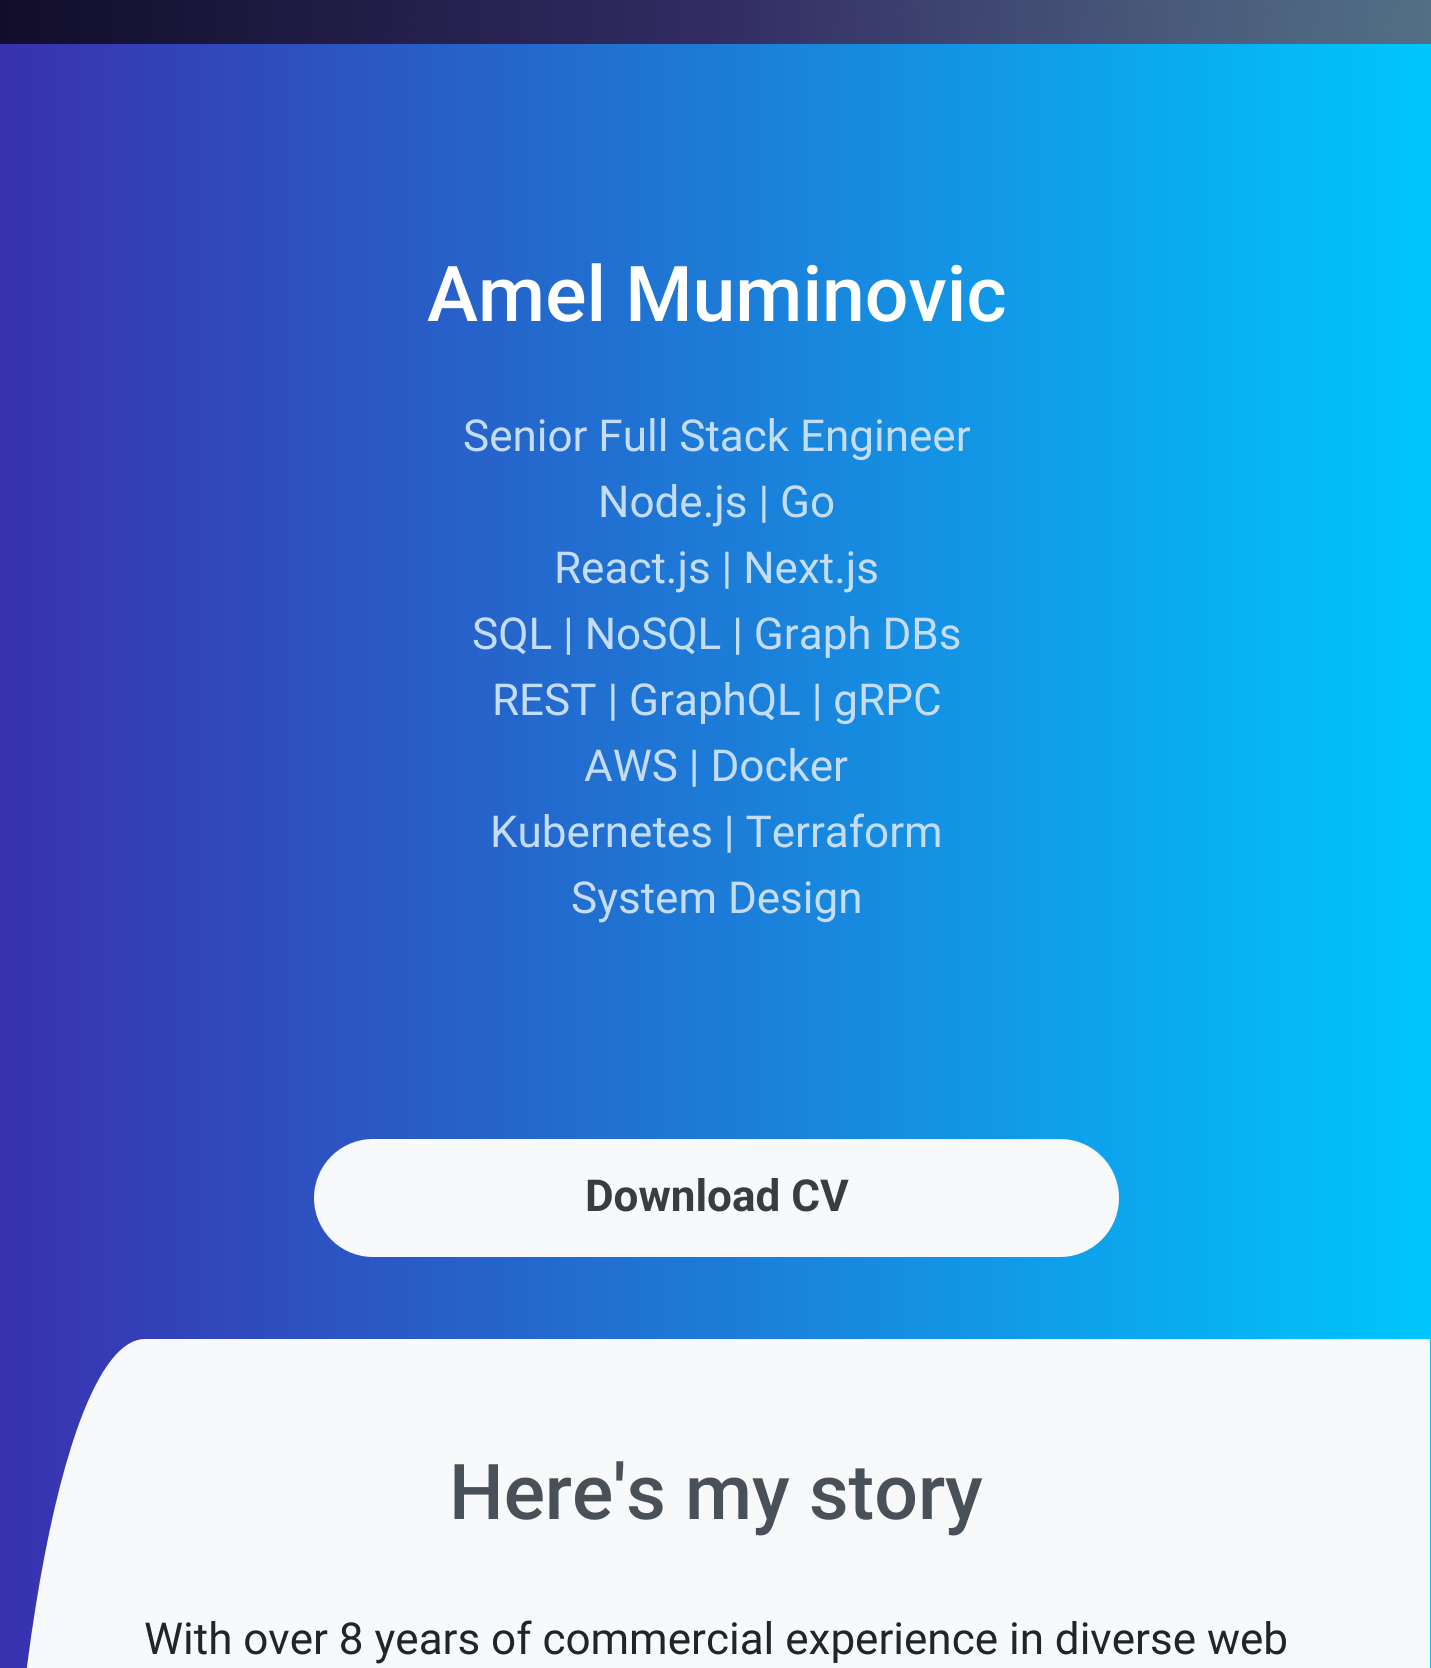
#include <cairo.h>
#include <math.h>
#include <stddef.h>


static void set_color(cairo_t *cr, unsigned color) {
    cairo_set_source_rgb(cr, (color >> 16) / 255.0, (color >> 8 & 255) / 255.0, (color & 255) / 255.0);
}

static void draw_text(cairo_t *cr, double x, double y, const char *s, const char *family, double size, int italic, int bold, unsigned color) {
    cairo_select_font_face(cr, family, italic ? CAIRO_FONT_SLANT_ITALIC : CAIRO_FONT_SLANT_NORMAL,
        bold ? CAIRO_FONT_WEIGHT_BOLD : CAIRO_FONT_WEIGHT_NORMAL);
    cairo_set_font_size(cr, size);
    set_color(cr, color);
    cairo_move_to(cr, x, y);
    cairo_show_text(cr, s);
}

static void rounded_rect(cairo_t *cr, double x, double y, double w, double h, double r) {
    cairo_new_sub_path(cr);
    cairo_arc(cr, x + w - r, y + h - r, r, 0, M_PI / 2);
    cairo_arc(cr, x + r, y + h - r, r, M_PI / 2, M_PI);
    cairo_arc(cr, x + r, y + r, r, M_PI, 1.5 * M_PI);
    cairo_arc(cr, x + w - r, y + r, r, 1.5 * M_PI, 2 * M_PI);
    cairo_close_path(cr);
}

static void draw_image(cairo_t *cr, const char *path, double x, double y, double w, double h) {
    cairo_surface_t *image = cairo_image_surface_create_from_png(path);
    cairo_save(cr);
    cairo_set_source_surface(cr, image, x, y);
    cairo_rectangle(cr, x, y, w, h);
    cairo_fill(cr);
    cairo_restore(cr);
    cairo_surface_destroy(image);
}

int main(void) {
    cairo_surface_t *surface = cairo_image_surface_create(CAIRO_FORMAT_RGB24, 1431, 1668);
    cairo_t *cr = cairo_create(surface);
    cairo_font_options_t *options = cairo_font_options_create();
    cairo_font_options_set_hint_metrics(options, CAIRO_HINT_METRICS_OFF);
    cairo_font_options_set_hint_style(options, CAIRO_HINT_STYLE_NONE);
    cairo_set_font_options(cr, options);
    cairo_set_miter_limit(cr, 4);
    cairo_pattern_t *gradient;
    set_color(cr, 0xFFFFFF);
    cairo_paint(cr);
    draw_image(cr, "assets/img1.png", 0, 0, 1431, 44);
    gradient = cairo_pattern_create_linear(0, 1448, 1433, 1448);
    cairo_pattern_add_color_stop_rgba(gradient, 0, 0.224, 0.192, 0.686, 1);
    cairo_pattern_add_color_stop_rgba(gradient, 1, 0, 0.776, 1, 1);
    cairo_set_source(cr, gradient);
    cairo_pattern_destroy(gradient);
    cairo_rectangle(cr, 0, 44, 1431, 1624);
    cairo_fill(cr);
    draw_text(cr, 427, 321, "Amel Muminovic", "Roboto Medium", 77, 0, 0, 0xFFFFFF);
    draw_text(cr, 463, 451, "Senior Full Stack Engineer", "Roboto", 44, 0, 0, 0xC4DDF5);
    draw_text(cr, 598, 517, "Node.js | Go", "Roboto", 44, 0, 0, 0xC4DDF5);
    draw_text(cr, 554, 583, "React.js | Next.js", "Roboto", 44, 0, 0, 0xC4DDF5);
    draw_text(cr, 472, 649, "SQL | NoSQL | Graph DBs", "Roboto", 44, 0, 0, 0xC4DDF5);
    draw_text(cr, 492, 715, "REST | GraphQL | gRPC", "Roboto", 44, 0, 0, 0xC4DDF5);
    draw_text(cr, 584, 781, "AWS | Docker", "Roboto", 44, 0, 0, 0xC4DDF5);
    draw_text(cr, 490, 847, "Kubernetes | Terraform", "Roboto", 44, 0, 0, 0xC4DDF5);
    draw_text(cr, 571, 913, "System Design", "Roboto", 44, 0, 0, 0xC4DDF5);
    set_color(cr, 0xF8F9FA);
    rounded_rect(cr, 314, 1139, 805, 118, 59);
    cairo_fill(cr);
    draw_text(cr, 585, 1211, "Download CV", "Roboto", 44, 0, 1, 0x383D41);
    set_color(cr, 0xF8F9FA);
    cairo_new_path(cr);
    cairo_move_to(cr, 145, 1339);
    cairo_line_to(cr, 1430, 1339);
    cairo_line_to(cr, 1430, 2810);
    cairo_line_to(cr, 145, 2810);
    cairo_curve_to(cr, 67, 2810, 3, 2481, 3, 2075);
    cairo_curve_to(cr, 3, 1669, 67, 1339, 145, 1339);
    cairo_close_path(cr);
    cairo_fill(cr);
    draw_text(cr, 449, 1519, "Here's my story", "Roboto Medium", 77, 0, 0, 0x495057);
    draw_text(cr, 144, 1654, "With over 8 years of commercial experience in diverse web", "Roboto", 44, 0, 0, 0x212529);
    cairo_surface_write_to_png(surface, "output.png");
    cairo_font_options_destroy(options);
    cairo_destroy(cr);
    cairo_surface_destroy(surface);
    return 0;
}
